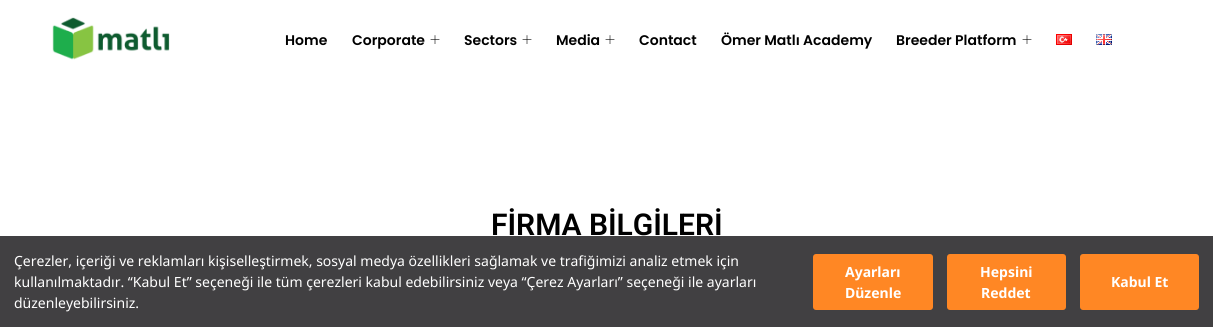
#include <cairo.h>
#include <math.h>
#include <stddef.h>


static void set_color(cairo_t *cr, unsigned color) {
    cairo_set_source_rgb(cr, (color >> 16) / 255.0, (color >> 8 & 255) / 255.0, (color & 255) / 255.0);
}

static void draw_text(cairo_t *cr, double x, double y, const char *s, const char *family, double size, int italic, int bold, unsigned color) {
    cairo_select_font_face(cr, family, italic ? CAIRO_FONT_SLANT_ITALIC : CAIRO_FONT_SLANT_NORMAL,
        bold ? CAIRO_FONT_WEIGHT_BOLD : CAIRO_FONT_WEIGHT_NORMAL);
    cairo_set_font_size(cr, size);
    set_color(cr, color);
    cairo_move_to(cr, x, y);
    cairo_show_text(cr, s);
}

static void fill_rect(cairo_t *cr, double x, double y, double w, double h, unsigned color) {
    set_color(cr, color);
    cairo_rectangle(cr, x, y, w, h);
    cairo_fill(cr);
}

static void rounded_rect(cairo_t *cr, double x, double y, double w, double h, double r) {
    cairo_new_sub_path(cr);
    cairo_arc(cr, x + w - r, y + h - r, r, 0, M_PI / 2);
    cairo_arc(cr, x + r, y + h - r, r, M_PI / 2, M_PI);
    cairo_arc(cr, x + r, y + r, r, M_PI, 1.5 * M_PI);
    cairo_arc(cr, x + w - r, y + r, r, 1.5 * M_PI, 2 * M_PI);
    cairo_close_path(cr);
}

static void draw_image(cairo_t *cr, const char *path, double x, double y, double w, double h) {
    cairo_surface_t *image = cairo_image_surface_create_from_png(path);
    cairo_save(cr);
    cairo_set_source_surface(cr, image, x, y);
    cairo_rectangle(cr, x, y, w, h);
    cairo_fill(cr);
    cairo_restore(cr);
    cairo_surface_destroy(image);
}

int main(void) {
    cairo_surface_t *surface = cairo_image_surface_create(CAIRO_FORMAT_RGB24, 1213, 327);
    cairo_t *cr = cairo_create(surface);
    cairo_font_options_t *options = cairo_font_options_create();
    cairo_font_options_set_hint_metrics(options, CAIRO_HINT_METRICS_OFF);
    cairo_font_options_set_hint_style(options, CAIRO_HINT_STYLE_NONE);
    cairo_set_font_options(cr, options);
    cairo_set_miter_limit(cr, 4);
    set_color(cr, 0xFFFFFF);
    cairo_paint(cr);
    draw_image(cr, "assets/img1.png", 52, 17, 118, 43);
    draw_text(cr, 285, 45, "Home", "Poppins SemiBold", 14, 0, 0, 0x000000);
    draw_text(cr, 352, 45, "Corporate", "Poppins SemiBold", 14, 0, 0, 0x000000);
    draw_image(cr, "assets/img2.png", 430, 35, 10, 9);
    draw_text(cr, 464, 45, "Sectors", "Poppins SemiBold", 14, 0, 0, 0x000000);
    draw_image(cr, "assets/img2.png", 522, 35, 10, 9);
    draw_text(cr, 556, 45, "Media", "Poppins SemiBold", 14, 0, 0, 0x000000);
    draw_image(cr, "assets/img2.png", 605, 35, 10, 9);
    draw_text(cr, 639, 45, "Contact", "Poppins SemiBold", 14, 0, 0, 0x000000);
    draw_text(cr, 721, 45, "Ömer Matlı Academy", "Poppins SemiBold", 14, 0, 0, 0x000000);
    draw_text(cr, 896, 45, "Breeder Platform", "Poppins SemiBold", 14, 0, 0, 0x000000);
    draw_image(cr, "assets/img2.png", 1022, 35, 10, 9);
    draw_image(cr, "assets/img3.png", 1056, 34, 16, 11);
    draw_image(cr, "assets/img4.png", 1096, 34, 16, 11);
    draw_text(cr, 491, 235, "FİRMA BİLGİLERİ", "Roboto SemiBold", 30, 0, 0, 0x000000);
    fill_rect(cr, 0, 236, 1213, 91, 0x414042);
    draw_text(cr, 14, 266, "Çerezler, içeriği ve reklamları kişiselleştirmek, sosyal medya özellikleri sağlamak ve trafiğimizi analiz etmek için", "Noto Sans", 14, 0, 0, 0xFFFFFF);
    draw_text(cr, 14, 287, "kullanılmaktadır. “Kabul Et” seçeneği ile tüm çerezleri kabul edebilirsiniz veya “Çerez Ayarları” seçeneği ile ayarları", "Noto Sans", 14, 0, 0, 0xFFFFFF);
    draw_text(cr, 14, 308, "düzenleyebilirsiniz.", "Noto Sans", 14, 0, 0, 0xFFFFFF);
    set_color(cr, 0xFF8724);
    rounded_rect(cr, 813, 254, 120, 56, 3);
    cairo_fill(cr);
    draw_text(cr, 845, 277, "Ayarları", "Noto Sans", 14, 0, 1, 0xFFFFFF);
    draw_text(cr, 845, 298, "Düzenle", "Noto Sans", 14, 0, 1, 0xFFFFFF);
    set_color(cr, 0xFF8724);
    rounded_rect(cr, 947, 254, 119, 56, 3);
    cairo_fill(cr);
    draw_text(cr, 980, 277, "Hepsini", "Noto Sans", 14, 0, 1, 0xFFFFFF);
    draw_text(cr, 981, 298, "Reddet", "Noto Sans", 14, 0, 1, 0xFFFFFF);
    set_color(cr, 0xFF8724);
    rounded_rect(cr, 1080, 254, 119, 56, 3);
    cairo_fill(cr);
    draw_text(cr, 1111, 287, "Kabul Et", "Noto Sans", 14, 0, 1, 0xFFFFFF);
    cairo_surface_write_to_png(surface, "output.png");
    cairo_font_options_destroy(options);
    cairo_destroy(cr);
    cairo_surface_destroy(surface);
    return 0;
}
